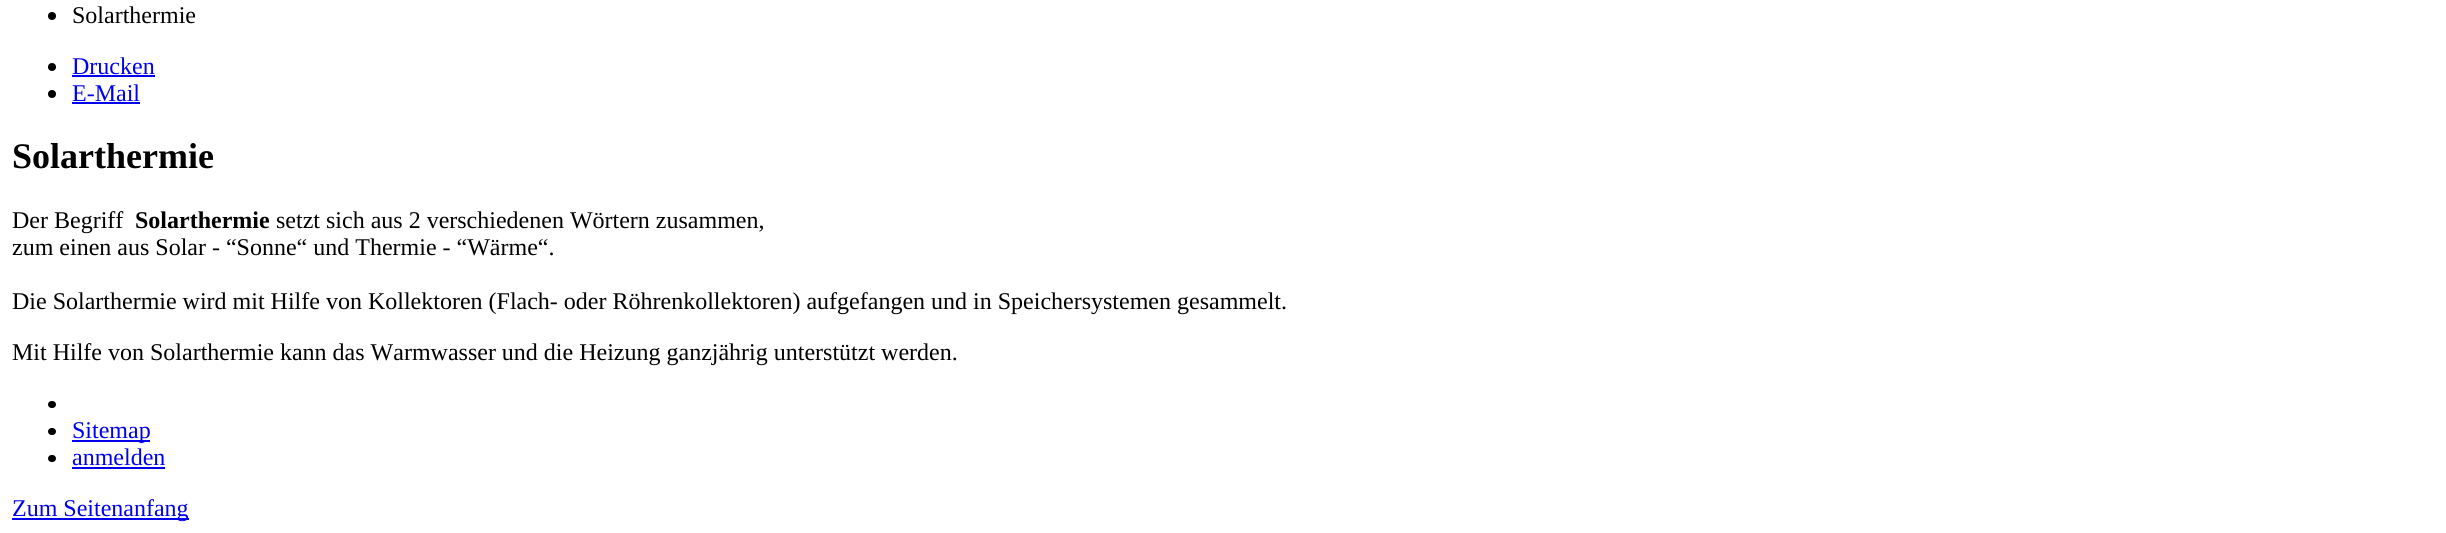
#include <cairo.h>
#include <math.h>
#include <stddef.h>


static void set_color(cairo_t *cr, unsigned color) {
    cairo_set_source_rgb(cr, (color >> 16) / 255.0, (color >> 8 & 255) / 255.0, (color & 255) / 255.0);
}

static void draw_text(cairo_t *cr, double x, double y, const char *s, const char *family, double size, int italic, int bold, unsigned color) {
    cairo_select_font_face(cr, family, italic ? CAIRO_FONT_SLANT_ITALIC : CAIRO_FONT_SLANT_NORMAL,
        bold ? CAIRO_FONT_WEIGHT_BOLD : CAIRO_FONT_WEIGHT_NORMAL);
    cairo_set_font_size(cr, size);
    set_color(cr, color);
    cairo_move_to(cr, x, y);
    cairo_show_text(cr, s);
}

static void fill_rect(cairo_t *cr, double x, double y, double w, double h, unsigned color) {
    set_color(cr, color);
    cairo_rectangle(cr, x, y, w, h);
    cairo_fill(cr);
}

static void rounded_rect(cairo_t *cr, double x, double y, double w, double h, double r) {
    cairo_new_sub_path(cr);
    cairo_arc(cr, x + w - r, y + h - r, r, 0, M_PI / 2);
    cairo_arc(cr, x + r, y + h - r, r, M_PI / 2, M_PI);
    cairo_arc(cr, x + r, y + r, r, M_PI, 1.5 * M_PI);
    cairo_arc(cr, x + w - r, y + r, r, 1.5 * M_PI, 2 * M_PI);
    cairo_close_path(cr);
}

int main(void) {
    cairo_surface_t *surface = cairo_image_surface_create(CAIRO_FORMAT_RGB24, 2446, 533);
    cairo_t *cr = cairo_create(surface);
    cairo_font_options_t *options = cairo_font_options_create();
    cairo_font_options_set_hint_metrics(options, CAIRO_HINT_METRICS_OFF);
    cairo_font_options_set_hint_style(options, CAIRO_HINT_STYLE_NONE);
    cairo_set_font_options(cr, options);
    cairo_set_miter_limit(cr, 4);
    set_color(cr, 0xFFFFFF);
    cairo_paint(cr);
    set_color(cr, 0x000000);
    cairo_arc(cr, 52, 16, 4, 0, 2 * M_PI);
    cairo_fill(cr);
    draw_text(cr, 72, 23, "Solarthermie", "Liberation Serif", 24, 0, 0, 0x000000);
    cairo_new_path(cr);
    cairo_arc(cr, 52, 67, 4, 0, 2 * M_PI);
    cairo_fill(cr);
    draw_text(cr, 72, 74, "Drucken", "Liberation Serif", 24, 0, 0, 0x0000EE);
    fill_rect(cr, 72, 75, 83, 2, 0x0000EE);
    set_color(cr, 0x000000);
    cairo_new_path(cr);
    cairo_arc(cr, 52, 94, 4, 0, 2 * M_PI);
    cairo_fill(cr);
    draw_text(cr, 72, 101, "E-Mail", "Liberation Serif", 24, 0, 0, 0x0000EE);
    fill_rect(cr, 72, 102, 68, 2, 0x0000EE);
    draw_text(cr, 12, 168, "Solarthermie", "Liberation Serif", 36, 0, 1, 0x000000);
    draw_text(cr, 12, 228, "Der Begriff", "Liberation Serif", 24, 0, 0, 0x000000);
    draw_text(cr, 135, 228, "Solarthermie", "Liberation Serif", 24, 0, 1, 0x000000);
    draw_text(cr, 276, 228, "setzt sich aus 2 verschiedenen Wörtern zusammen,", "Liberation Serif", 24, 0, 0, 0x000000);
    draw_text(cr, 12, 255, "zum einen aus Solar - “Sonne“ und Thermie - “Wärme“.", "Liberation Serif", 24, 0, 0, 0x000000);
    draw_text(cr, 12, 309, "Die Solarthermie wird mit Hilfe von Kollektoren (Flach- oder Röhrenkollektoren) aufgefangen und in Speichersystemen gesammelt.", "Liberation Serif", 24, 0, 0, 0x000000);
    draw_text(cr, 12, 360, "Mit Hilfe von Solarthermie kann das Warmwasser und die Heizung ganzjährig unterstützt werden.", "Liberation Serif", 24, 0, 0, 0x000000);
    rounded_rect(cr, 48, 401, 8, 7, 3.5);
    cairo_fill(cr);
    rounded_rect(cr, 48, 428, 8, 7, 3.5);
    cairo_fill(cr);
    fill_rect(cr, 72, 440, 78, 2, 0x0000EE);
    draw_text(cr, 72, 438, "Sitemap", "Liberation Serif", 24, 0, 0, 0x0000EE);
    set_color(cr, 0x000000);
    rounded_rect(cr, 48, 455, 8, 7, 3.5);
    cairo_fill(cr);
    draw_text(cr, 72, 465, "anmelden", "Liberation Serif", 24, 0, 0, 0x0000EE);
    fill_rect(cr, 72, 467, 93, 2, 0x0000EE);
    fill_rect(cr, 12, 518, 177, 2, 0x0000EE);
    draw_text(cr, 12, 516, "Zum Seitenanfang", "Liberation Serif", 24, 0, 0, 0x0000EE);
    cairo_surface_write_to_png(surface, "output.png");
    cairo_font_options_destroy(options);
    cairo_destroy(cr);
    cairo_surface_destroy(surface);
    return 0;
}
